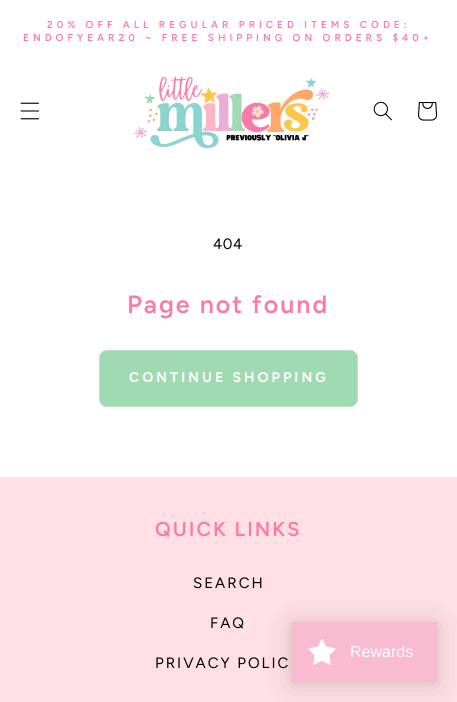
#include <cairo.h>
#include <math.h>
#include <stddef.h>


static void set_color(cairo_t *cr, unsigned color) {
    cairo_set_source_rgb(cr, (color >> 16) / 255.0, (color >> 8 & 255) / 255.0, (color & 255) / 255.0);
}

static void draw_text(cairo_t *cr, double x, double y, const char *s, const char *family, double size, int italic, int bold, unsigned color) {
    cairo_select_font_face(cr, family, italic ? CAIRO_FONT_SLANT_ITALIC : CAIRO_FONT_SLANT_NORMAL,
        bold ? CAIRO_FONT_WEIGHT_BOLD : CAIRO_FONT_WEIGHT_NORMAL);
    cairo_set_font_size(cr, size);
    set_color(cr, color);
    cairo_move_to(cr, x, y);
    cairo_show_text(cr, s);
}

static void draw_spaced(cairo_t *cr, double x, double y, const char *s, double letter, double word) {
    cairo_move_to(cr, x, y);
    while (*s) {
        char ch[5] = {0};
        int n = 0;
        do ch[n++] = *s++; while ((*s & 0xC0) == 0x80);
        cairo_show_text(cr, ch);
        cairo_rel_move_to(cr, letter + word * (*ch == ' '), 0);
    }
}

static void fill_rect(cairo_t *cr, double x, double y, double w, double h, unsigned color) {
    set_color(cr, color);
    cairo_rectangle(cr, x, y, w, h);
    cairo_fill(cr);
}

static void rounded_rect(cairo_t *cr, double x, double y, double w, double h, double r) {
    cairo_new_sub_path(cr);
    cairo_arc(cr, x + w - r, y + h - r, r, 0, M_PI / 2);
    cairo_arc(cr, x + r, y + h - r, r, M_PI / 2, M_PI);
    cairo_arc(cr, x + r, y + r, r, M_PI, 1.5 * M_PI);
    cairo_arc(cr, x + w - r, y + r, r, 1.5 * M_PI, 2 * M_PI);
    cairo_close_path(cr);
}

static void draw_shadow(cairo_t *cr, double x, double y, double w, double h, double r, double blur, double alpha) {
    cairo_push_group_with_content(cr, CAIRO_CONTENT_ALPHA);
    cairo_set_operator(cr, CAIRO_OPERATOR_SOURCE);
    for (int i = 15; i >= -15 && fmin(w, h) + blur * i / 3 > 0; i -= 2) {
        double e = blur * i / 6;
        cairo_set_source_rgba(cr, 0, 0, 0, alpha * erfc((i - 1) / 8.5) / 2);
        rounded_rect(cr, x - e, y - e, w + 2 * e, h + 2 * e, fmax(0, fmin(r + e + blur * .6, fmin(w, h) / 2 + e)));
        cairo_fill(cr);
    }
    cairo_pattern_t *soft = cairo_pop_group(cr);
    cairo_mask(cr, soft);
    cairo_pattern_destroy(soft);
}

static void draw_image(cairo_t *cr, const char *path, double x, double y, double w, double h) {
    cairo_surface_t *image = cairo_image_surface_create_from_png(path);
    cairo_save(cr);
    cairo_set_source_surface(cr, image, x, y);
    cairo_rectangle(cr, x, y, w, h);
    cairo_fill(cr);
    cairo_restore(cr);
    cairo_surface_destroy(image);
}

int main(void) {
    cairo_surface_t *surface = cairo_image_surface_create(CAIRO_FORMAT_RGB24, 457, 702);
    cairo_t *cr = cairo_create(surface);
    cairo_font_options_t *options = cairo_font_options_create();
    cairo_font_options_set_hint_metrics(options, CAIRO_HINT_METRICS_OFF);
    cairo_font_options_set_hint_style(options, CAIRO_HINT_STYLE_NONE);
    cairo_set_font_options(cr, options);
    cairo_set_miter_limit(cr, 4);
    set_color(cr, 0xFFFFFF);
    cairo_paint(cr);
    cairo_select_font_face(cr, "Figtree SemiBold", CAIRO_FONT_SLANT_NORMAL, CAIRO_FONT_WEIGHT_NORMAL);
    cairo_set_font_size(cr, 10);
    set_color(cr, 0xFC7AA8);
    draw_spaced(cr, 47, 28, "20% OFF ALL REGULAR PRICED ITEMS CODE:", 4, 0);
    draw_spaced(cr, 23, 41, "ENDOFYEAR20 ~ FREE SHIPPING ON ORDERS $40+", 4, 0);
    draw_image(cr, "assets/img1.png", 20, 102, 20, 18);
    draw_image(cr, "assets/img2.png", 133, 76, 197, 73);
    draw_image(cr, "assets/img3.png", 373, 101, 19, 20);
    draw_image(cr, "assets/img4.png", 418, 102, 20, 19);
    cairo_select_font_face(cr, "Figtree", CAIRO_FONT_SLANT_NORMAL, CAIRO_FONT_WEIGHT_NORMAL);
    cairo_set_font_size(cr, 15);
    set_color(cr, 0x000000);
    draw_spaced(cr, 213, 249, "404", 0.5, 0);
    cairo_select_font_face(cr, "Figtree SemiBold", CAIRO_FONT_SLANT_NORMAL, CAIRO_FONT_WEIGHT_NORMAL);
    cairo_set_font_size(cr, 25);
    set_color(cr, 0xFC7AA8);
    draw_spaced(cr, 127, 313, "Page not found", 2, 0);
    set_color(cr, 0xA0DAB3);
    rounded_rect(cr, 99, 350, 259, 57, 8);
    cairo_fill(cr);
    rounded_rect(cr, 99.15, 350.15, 258.7, 56.7, 7.85);
    set_color(cr, 0xFAFAFA);
    cairo_set_line_width(cr, 0.3);
    cairo_stroke(cr);
    cairo_select_font_face(cr, "Figtree", CAIRO_FONT_SLANT_NORMAL, CAIRO_FONT_WEIGHT_BOLD);
    cairo_set_font_size(cr, 14);
    set_color(cr, 0xFFFFFF);
    draw_spaced(cr, 129, 382, "CONTINUE SHOPPING", 3, 0);
    fill_rect(cr, 0, 477, 457, 225, 0xFFE0E5);
    cairo_select_font_face(cr, "Figtree SemiBold", CAIRO_FONT_SLANT_NORMAL, CAIRO_FONT_WEIGHT_NORMAL);
    cairo_set_font_size(cr, 20);
    set_color(cr, 0xFC7AA8);
    draw_spaced(cr, 155, 536, "QUICK LINKS", 2, 0);
    cairo_select_font_face(cr, "Figtree", CAIRO_FONT_SLANT_NORMAL, CAIRO_FONT_WEIGHT_NORMAL);
    cairo_set_font_size(cr, 15);
    set_color(cr, 0x000000);
    draw_spaced(cr, 193, 588, "SEARCH", 2, 0);
    draw_spaced(cr, 210, 628, "FAQ", 2, 0);
    draw_spaced(cr, 155, 668, "PRIVACY POLIC", 2, 0);
    set_color(cr, 0x000000);
    draw_shadow(cr, 292, 624, 145, 60, 0, 15, 0.15);
    draw_shadow(cr, 292, 623, 145, 60, 0, 3, 0.05);
    fill_rect(cr, 292, 622, 145, 60, 0xF8BBD0);
    draw_image(cr, "assets/img5.png", 308, 639, 28, 26);
    draw_text(cr, 350, 657, "Rewards", "Liberation Sans", 16, 0, 0, 0xFFFFFF);
    cairo_surface_write_to_png(surface, "output.png");
    cairo_font_options_destroy(options);
    cairo_destroy(cr);
    cairo_surface_destroy(surface);
    return 0;
}
